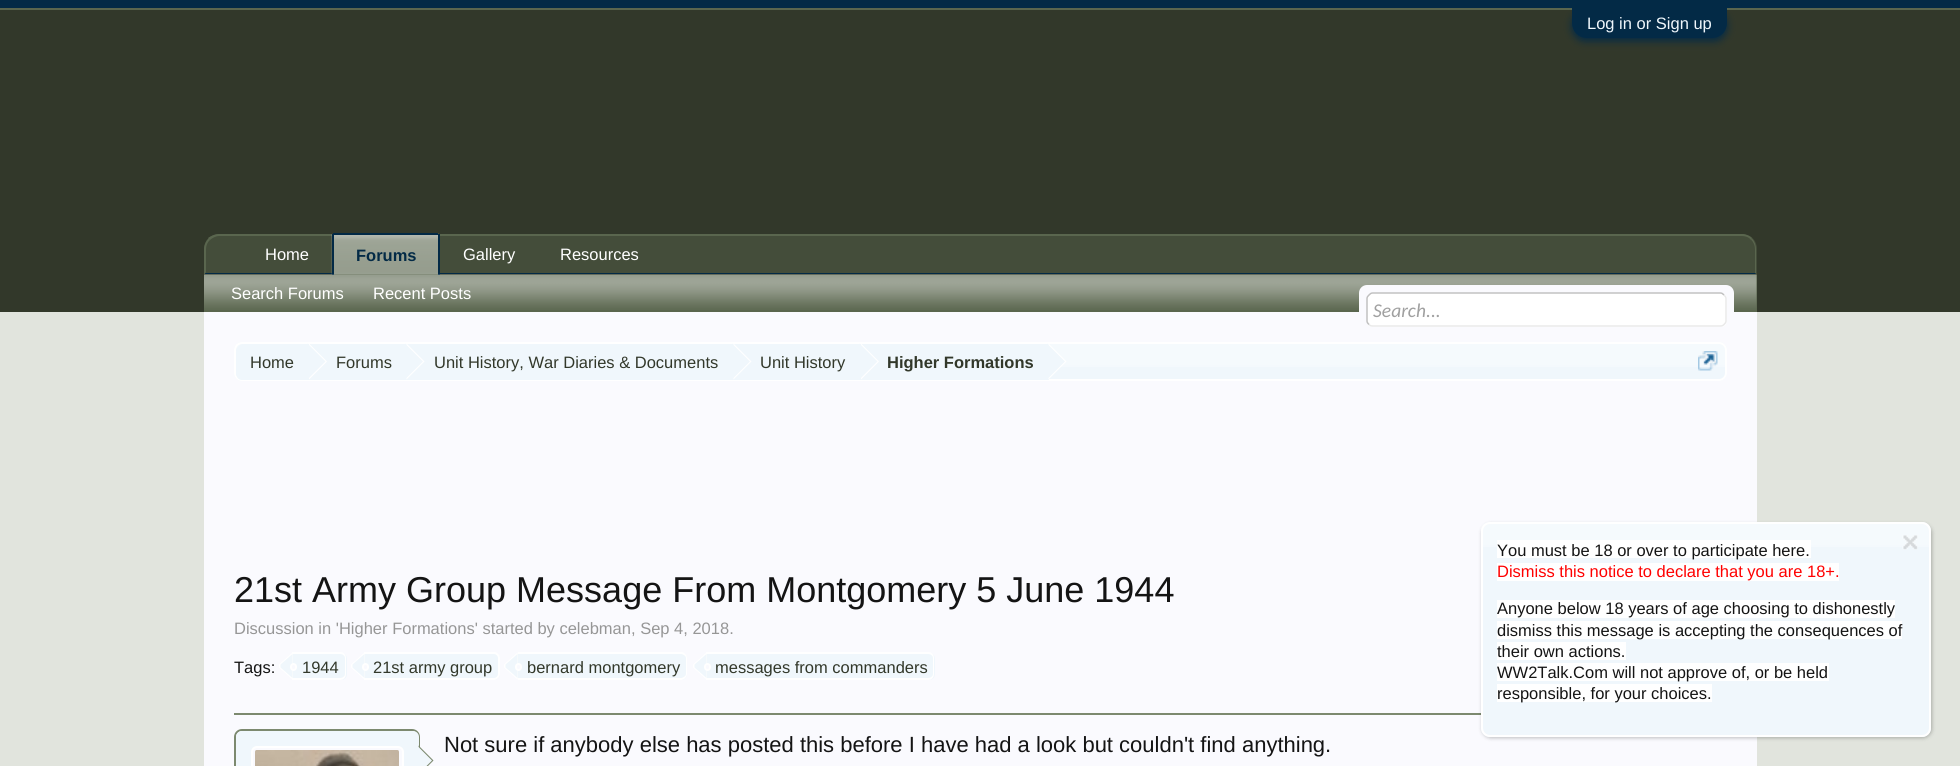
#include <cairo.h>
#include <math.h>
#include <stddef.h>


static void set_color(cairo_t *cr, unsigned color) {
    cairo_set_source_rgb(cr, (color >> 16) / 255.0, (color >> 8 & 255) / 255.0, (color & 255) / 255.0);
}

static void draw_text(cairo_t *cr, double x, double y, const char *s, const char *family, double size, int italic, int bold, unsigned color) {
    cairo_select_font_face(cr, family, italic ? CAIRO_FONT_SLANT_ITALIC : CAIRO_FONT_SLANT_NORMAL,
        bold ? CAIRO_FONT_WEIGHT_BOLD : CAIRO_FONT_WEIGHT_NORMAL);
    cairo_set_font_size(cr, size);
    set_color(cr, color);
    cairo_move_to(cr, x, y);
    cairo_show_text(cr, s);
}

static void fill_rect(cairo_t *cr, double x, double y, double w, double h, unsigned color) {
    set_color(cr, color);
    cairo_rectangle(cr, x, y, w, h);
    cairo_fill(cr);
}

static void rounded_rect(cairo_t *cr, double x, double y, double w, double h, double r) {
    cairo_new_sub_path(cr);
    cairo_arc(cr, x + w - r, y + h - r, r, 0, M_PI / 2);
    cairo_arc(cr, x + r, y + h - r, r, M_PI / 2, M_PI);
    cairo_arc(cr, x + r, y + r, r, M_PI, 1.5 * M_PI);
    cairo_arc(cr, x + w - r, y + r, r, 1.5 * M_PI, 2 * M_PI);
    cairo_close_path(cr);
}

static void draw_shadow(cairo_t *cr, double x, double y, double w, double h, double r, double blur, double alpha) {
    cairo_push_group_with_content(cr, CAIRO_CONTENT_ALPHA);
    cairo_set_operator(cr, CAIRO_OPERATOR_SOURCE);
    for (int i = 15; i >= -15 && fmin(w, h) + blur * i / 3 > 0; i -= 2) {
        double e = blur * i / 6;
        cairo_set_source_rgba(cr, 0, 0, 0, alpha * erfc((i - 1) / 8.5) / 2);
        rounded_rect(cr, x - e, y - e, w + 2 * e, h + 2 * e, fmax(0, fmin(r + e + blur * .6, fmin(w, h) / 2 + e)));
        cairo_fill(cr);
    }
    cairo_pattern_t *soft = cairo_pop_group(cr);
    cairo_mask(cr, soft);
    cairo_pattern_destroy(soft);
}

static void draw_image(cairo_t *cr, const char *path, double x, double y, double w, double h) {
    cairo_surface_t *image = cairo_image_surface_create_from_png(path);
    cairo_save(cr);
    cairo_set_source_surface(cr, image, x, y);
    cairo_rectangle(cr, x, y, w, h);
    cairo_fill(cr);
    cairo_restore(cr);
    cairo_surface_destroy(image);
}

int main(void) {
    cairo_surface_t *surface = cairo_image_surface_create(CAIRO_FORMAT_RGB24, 1960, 766);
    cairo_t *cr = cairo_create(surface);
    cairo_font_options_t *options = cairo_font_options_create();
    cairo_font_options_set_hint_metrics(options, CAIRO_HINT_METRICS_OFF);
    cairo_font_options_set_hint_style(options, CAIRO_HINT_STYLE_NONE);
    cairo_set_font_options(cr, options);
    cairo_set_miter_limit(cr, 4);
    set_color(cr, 0xE1E4DD);
    cairo_paint(cr);
    fill_rect(cr, 0, 0, 1960, 8, 0x032A46);
    fill_rect(cr, 0, 8, 1960, 2, 0x5A664E);
    fill_rect(cr, 0, 10, 1960, 302, 0x32382A);
    set_color(cr, 0x032A46);
    draw_shadow(cr, 1572, 11, 155, 30, 15, 4, 1);
    set_color(cr, 0x032A46);
    cairo_new_path(cr);
    cairo_move_to(cr, 1572, 8);
    cairo_line_to(cr, 1727, 8);
    cairo_line_to(cr, 1727, 23);
    cairo_curve_to(cr, 1727, 31.5, 1720.5, 38, 1712, 38);
    cairo_line_to(cr, 1587, 38);
    cairo_curve_to(cr, 1578.5, 38, 1572, 31.5, 1572, 23);
    cairo_close_path(cr);
    cairo_fill(cr);
    draw_text(cr, 1587, 29, "Log in or Sign up", "Liberation Sans", 16.5, 0, 0, 0xF0F7FC);
    set_color(cr, 0x444D3A);
    cairo_new_path(cr);
    cairo_move_to(cr, 219, 234);
    cairo_line_to(cr, 1742, 234);
    cairo_curve_to(cr, 1750.5, 234, 1757, 240.5, 1757, 249);
    cairo_line_to(cr, 1757, 275);
    cairo_line_to(cr, 204, 275);
    cairo_line_to(cr, 204, 249);
    cairo_curve_to(cr, 204, 240.5, 210.5, 234, 219, 234);
    cairo_close_path(cr);
    cairo_fill(cr);
    set_color(cr, 0x5A664E);
    cairo_new_path(cr);
    cairo_move_to(cr, 219, 234);
    cairo_curve_to(cr, 215, 234, 211, 236, 208, 238);
    cairo_line_to(cr, 210, 240);
    cairo_curve_to(cr, 212, 238, 216, 236, 219, 236);
    cairo_line_to(cr, 1742, 236);
    cairo_curve_to(cr, 1745, 236, 1749, 237, 1751, 240);
    cairo_line_to(cr, 1752, 238);
    cairo_curve_to(cr, 1750, 236, 1746, 234, 1742, 234);
    cairo_close_path(cr);
    cairo_fill(cr);
    cairo_new_path(cr);
    cairo_move_to(cr, 1752, 238.5);
    cairo_curve_to(cr, 1754.5, 241, 1756, 245, 1756, 249);
    cairo_line_to(cr, 1756, 274);
    cairo_line_to(cr, 1755, 273);
    cairo_line_to(cr, 1755, 249);
    cairo_curve_to(cr, 1755, 245.5, 1753.5, 242, 1751, 239.5);
    cairo_close_path(cr);
    cairo_fill(cr);
    set_color(cr, 0x032A46);
    cairo_new_path(cr);
    cairo_move_to(cr, 1756, 274);
    cairo_line_to(cr, 1755, 273);
    cairo_line_to(cr, 206, 273);
    cairo_line_to(cr, 206, 272);
    cairo_line_to(cr, 204, 274);
    cairo_close_path(cr);
    cairo_fill(cr);
    set_color(cr, 0x5A664E);
    cairo_new_path(cr);
    cairo_move_to(cr, 204, 249);
    cairo_line_to(cr, 204, 274);
    cairo_line_to(cr, 204.5, 274);
    cairo_line_to(cr, 206, 272.5);
    cairo_line_to(cr, 206, 249);
    cairo_curve_to(cr, 206, 245.5, 207.5, 242, 210, 240);
    cairo_line_to(cr, 208.5, 238.5);
    cairo_curve_to(cr, 206, 241, 204, 245, 204, 249);
    cairo_close_path(cr);
    cairo_fill(cr);
    draw_text(cr, 265, 260, "Home", "Liberation Sans", 16.5, 0, 0, 0xFFFFFF);
    draw_text(cr, 463, 260, "Gallery", "Liberation Sans", 16.5, 0, 0, 0xFFFFFF);
    draw_text(cr, 560, 260, "Resources", "Liberation Sans", 16.5, 0, 0, 0xFFFFFF);
    set_color(cr, 0x5A664E);
    cairo_new_path(cr);
    cairo_move_to(cr, 335, 233);
    cairo_line_to(cr, 437, 233);
    cairo_curve_to(cr, 438.5, 233, 440, 234.5, 440, 236);
    cairo_line_to(cr, 440, 275);
    cairo_line_to(cr, 332, 275);
    cairo_line_to(cr, 332, 236);
    cairo_curve_to(cr, 332, 234.5, 333.5, 233, 335, 233);
    cairo_close_path(cr);
    cairo_fill(cr);
    draw_image(cr, "assets/img1.png", 331, 234, 107, 41);
    fill_rect(cr, 333, 233, 105, 2, 0x032A46);
    fill_rect(cr, 438, 234, 2, 41, 0x032A46);
    fill_rect(cr, 332, 234, 2, 41, 0x032A46);
    draw_text(cr, 356, 261, "Forums", "Liberation Sans", 16.5, 0, 1, 0x032A46);
    fill_rect(cr, 204, 275, 1553, 37, 0x5A664E);
    draw_image(cr, "assets/img2.png", 204, 274, 1553, 36);
    draw_text(cr, 231, 299, "Search Forums", "Liberation Sans", 16.5, 0, 0, 0xFFFFFF);
    draw_text(cr, 373, 299, "Recent Posts", "Liberation Sans", 16.5, 0, 0, 0xFFFFFF);
    fill_rect(cr, 204, 312, 1553, 454, 0xFAFAFE);
    rounded_rect(cr, 1359, 285, 375, 42, 8);
    cairo_fill(cr);
    set_color(cr, 0xFFFFFF);
    rounded_rect(cr, 1367, 293, 360, 34, 6);
    cairo_fill(cr);
    cairo_new_path(cr);
    cairo_move_to(cr, 1724, 295);
    cairo_curve_to(cr, 1725, 296, 1726, 297, 1726, 298.5);
    cairo_line_to(cr, 1726, 321);
    cairo_curve_to(cr, 1726, 322.5, 1725, 323.5, 1724, 324.5);
    cairo_curve_to(cr, 1723, 325.5, 1722, 326, 1720.5, 326);
    cairo_line_to(cr, 1372.5, 326);
    cairo_curve_to(cr, 1371, 326, 1370, 325.5, 1369, 324.5);
    set_color(cr, 0xE9E9E9);
    cairo_set_line_width(cr, 1.5);
    cairo_stroke(cr);
    cairo_new_path(cr);
    cairo_move_to(cr, 1369, 324.5);
    cairo_curve_to(cr, 1368, 323.5, 1367, 322.5, 1367, 321);
    cairo_line_to(cr, 1367, 298.5);
    cairo_curve_to(cr, 1367, 297, 1368, 296, 1369, 295);
    cairo_curve_to(cr, 1370, 294, 1371, 293, 1372.5, 293);
    cairo_line_to(cr, 1720.5, 293);
    cairo_curve_to(cr, 1722, 293, 1723, 294, 1724, 295);
    set_color(cr, 0xC0C0C0);
    cairo_stroke(cr);
    draw_text(cr, 1373, 317, "Search...", "Carlito", 19.5, 1, 0, 0xA0A0A0);
    set_color(cr, 0xF0F7FC);
    rounded_rect(cr, 234, 342, 1493, 39, 8);
    cairo_fill(cr);
    draw_image(cr, "assets/img3.png", 234, 344, 1492, 23);
    rounded_rect(cr, 235, 343, 1491, 37, 7);
    set_color(cr, 0xFFFFFF);
    cairo_set_line_width(cr, 2);
    cairo_stroke(cr);
    cairo_save(cr);
    rounded_rect(cr, 236, 344, 1489, 36, 6);
    cairo_clip(cr);
    set_color(cr, 0xF0F7FC);
    cairo_new_path(cr);
    cairo_move_to(cr, 244, 344);
    cairo_line_to(cr, 309, 344);
    cairo_line_to(cr, 309, 381);
    cairo_line_to(cr, 244, 381);
    cairo_curve_to(cr, 239.5, 381, 236, 377.5, 236, 373);
    cairo_line_to(cr, 236, 352);
    cairo_curve_to(cr, 236, 347.5, 239.5, 344, 244, 344);
    cairo_close_path(cr);
    cairo_fill(cr);
    cairo_restore(cr);
    draw_text(cr, 250, 368, "Home", "Liberation Sans", 16.5, 0, 0, 0x32382A);
    fill_rect(cr, 309, 344, 740, 36, 0xF0F7FC);
    set_color(cr, 0xFFFFFF);
    cairo_new_path(cr);
    cairo_move_to(cr, 309, 379.5);
    cairo_line_to(cr, 309, 343.5);
    cairo_line_to(cr, 327, 361.5);
    cairo_close_path(cr);
    cairo_fill(cr);
    set_color(cr, 0xF0F7FC);
    cairo_new_path(cr);
    cairo_move_to(cr, 307.5, 379.5);
    cairo_line_to(cr, 307.5, 343.5);
    cairo_line_to(cr, 325.5, 361.5);
    cairo_close_path(cr);
    cairo_fill(cr);
    draw_text(cr, 336, 368, "Forums", "Liberation Sans", 16.5, 0, 0, 0x32382A);
    set_color(cr, 0xFFFFFF);
    cairo_new_path(cr);
    cairo_move_to(cr, 406.5, 379.5);
    cairo_line_to(cr, 406.5, 343.5);
    cairo_line_to(cr, 424.5, 361.5);
    cairo_close_path(cr);
    cairo_fill(cr);
    set_color(cr, 0xF0F7FC);
    cairo_new_path(cr);
    cairo_move_to(cr, 405, 379.5);
    cairo_line_to(cr, 405, 343.5);
    cairo_line_to(cr, 423, 361.5);
    cairo_close_path(cr);
    cairo_fill(cr);
    draw_text(cr, 434, 368, "Unit History, War Diaries & Documents", "Liberation Sans", 16.5, 0, 0, 0x32382A);
    set_color(cr, 0xFFFFFF);
    cairo_new_path(cr);
    cairo_move_to(cr, 733.5, 379.5);
    cairo_line_to(cr, 733.5, 343.5);
    cairo_line_to(cr, 751.5, 361.5);
    cairo_close_path(cr);
    cairo_fill(cr);
    set_color(cr, 0xF0F7FC);
    cairo_new_path(cr);
    cairo_move_to(cr, 732, 379.5);
    cairo_line_to(cr, 732, 343.5);
    cairo_line_to(cr, 750, 361.5);
    cairo_close_path(cr);
    cairo_fill(cr);
    draw_text(cr, 760, 368, "Unit History", "Liberation Sans", 16.5, 0, 0, 0x32382A);
    set_color(cr, 0xFFFFFF);
    cairo_new_path(cr);
    cairo_move_to(cr, 861, 379.5);
    cairo_line_to(cr, 861, 343.5);
    cairo_line_to(cr, 879, 361.5);
    cairo_close_path(cr);
    cairo_fill(cr);
    set_color(cr, 0xF0F7FC);
    cairo_new_path(cr);
    cairo_move_to(cr, 859.5, 379.5);
    cairo_line_to(cr, 859.5, 343.5);
    cairo_line_to(cr, 877.5, 361.5);
    cairo_close_path(cr);
    cairo_fill(cr);
    draw_text(cr, 887, 368, "Higher Formations", "Liberation Sans", 16.5, 0, 1, 0x32382A);
    set_color(cr, 0xFFFFFF);
    cairo_new_path(cr);
    cairo_move_to(cr, 1048.5, 379.5);
    cairo_line_to(cr, 1048.5, 343.5);
    cairo_line_to(cr, 1066.5, 361.5);
    cairo_close_path(cr);
    cairo_fill(cr);
    set_color(cr, 0xF0F7FC);
    cairo_new_path(cr);
    cairo_move_to(cr, 1047, 379.5);
    cairo_line_to(cr, 1047, 343.5);
    cairo_line_to(cr, 1065, 361.5);
    cairo_close_path(cr);
    cairo_fill(cr);
    draw_image(cr, "assets/img4.png", 1698, 351, 20, 20);
    draw_text(cr, 234, 602, "21st Army Group Message From Montgomery 5 June 1944", "Liberation Sans", 36, 0, 0, 0x141414);
    draw_text(cr, 234, 634, "Discussion in 'Higher Formations' started by celebman, Sep 4, 2018.", "Liberation Sans", 16.5, 0, 0, 0x969696);
    fill_rect(cr, 234, 713, 1247, 2, 0x7C896F);
    set_color(cr, 0x000000);
    draw_shadow(cr, 1482, 524, 450, 214, 9, 2, 0.25);
    set_color(cr, 0xF0F7FC);
    rounded_rect(cr, 1481, 522, 450, 215, 9);
    cairo_fill(cr);
    draw_image(cr, "assets/img5.png", 1481, 524, 449, 23);
    rounded_rect(cr, 1482, 523, 448, 213, 8);
    set_color(cr, 0xFFFFFF);
    cairo_stroke(cr);
    draw_image(cr, "assets/img6.png", 1902, 535, 16, 15);
    fill_rect(cr, 1497, 540, 314, 18, 0xFFFFFF);
    draw_text(cr, 1497, 556, "You must be 18 or over to participate here.", "Liberation Sans", 16.5, 0, 0, 0x141414);
    fill_rect(cr, 1497, 563, 342, 18, 0xFFFFFF);
    draw_text(cr, 1497, 577, "Dismiss this notice to declare that you are 18+.", "Liberation Sans", 16.5, 0, 0, 0xFF0000);
    fill_rect(cr, 1497, 600, 398, 18, 0xFFFFFF);
    draw_text(cr, 1497, 614, "Anyone below 18 years of age choosing to dishonestly", "Liberation Sans", 16.5, 0, 0, 0x141414);
    fill_rect(cr, 1497, 621, 405, 18, 0xFFFFFF);
    draw_text(cr, 1497, 636, "dismiss this message is accepting the consequences of", "Liberation Sans", 16.5, 0, 0, 0x141414);
    fill_rect(cr, 1497, 642, 129, 18, 0xFFFFFF);
    draw_text(cr, 1497, 657, "their own actions.", "Liberation Sans", 16.5, 0, 0, 0x141414);
    fill_rect(cr, 1497, 663, 332, 18, 0xFFFFFF);
    draw_text(cr, 1497, 678, "WW2Talk.Com will not approve of, or be held", "Liberation Sans", 16.5, 0, 0, 0x141414);
    fill_rect(cr, 1497, 684, 215, 18, 0xFFFFFF);
    draw_text(cr, 1497, 699, "responsible, for your choices.", "Liberation Sans", 16.5, 0, 0, 0x141414);
    draw_text(cr, 234, 673, "Tags:", "Liberation Sans", 16.5, 0, 0, 0x141414);
    set_color(cr, 0xF0F7FC);
    cairo_new_path(cr);
    cairo_move_to(cr, 293, 653);
    cairo_line_to(cr, 341, 653);
    cairo_curve_to(cr, 344.5, 653, 347, 655.5, 347, 659);
    cairo_line_to(cr, 347, 674);
    cairo_curve_to(cr, 347, 677.5, 344.5, 680, 341, 680);
    cairo_line_to(cr, 293, 680);
    cairo_close_path(cr);
    cairo_fill(cr);
    set_color(cr, 0xFFFFFF);
    cairo_set_fill_rule(cr, CAIRO_FILL_RULE_EVEN_ODD);
    cairo_new_path(cr);
    cairo_move_to(cr, 292, 652);
    cairo_line_to(cr, 340, 652);
    cairo_curve_to(cr, 344, 652, 346, 655, 346, 658);
    cairo_line_to(cr, 346, 674);
    cairo_curve_to(cr, 346, 677, 344, 680, 340, 680);
    cairo_line_to(cr, 292, 680);
    cairo_close_path(cr);
    cairo_move_to(cr, 292, 654);
    cairo_line_to(cr, 340, 654);
    cairo_curve_to(cr, 343, 654, 345, 656, 345, 658);
    cairo_line_to(cr, 345, 674);
    cairo_curve_to(cr, 345, 676, 343, 678, 340, 678);
    cairo_line_to(cr, 292, 678);
    cairo_close_path(cr);
    cairo_fill(cr);
    cairo_set_fill_rule(cr, CAIRO_FILL_RULE_WINDING);
    cairo_new_path(cr);
    cairo_move_to(cr, 292.5, 652.5);
    cairo_line_to(cr, 292.5, 679.5);
    cairo_line_to(cr, 279, 667.5);
    cairo_line_to(cr, 279, 664.5);
    cairo_close_path(cr);
    cairo_fill(cr);
    set_color(cr, 0xF0F7FC);
    cairo_new_path(cr);
    cairo_move_to(cr, 292.5, 654);
    cairo_line_to(cr, 292.5, 678);
    cairo_line_to(cr, 280.5, 667.5);
    cairo_line_to(cr, 280.5, 664.5);
    cairo_close_path(cr);
    cairo_fill(cr);
    set_color(cr, 0xFAFAFE);
    rounded_rect(cr, 291, 664, 5, 6, 2.5);
    cairo_fill_preserve(cr);
    set_color(cr, 0xFFFFFF);
    cairo_stroke(cr);
    draw_text(cr, 302, 673, "1944", "Liberation Sans", 16.5, 0, 0, 0x32382A);
    set_color(cr, 0xF0F7FC);
    cairo_new_path(cr);
    cairo_move_to(cr, 365, 653);
    cairo_line_to(cr, 494, 653);
    cairo_curve_to(cr, 497.5, 653, 500, 655.5, 500, 659);
    cairo_line_to(cr, 500, 674);
    cairo_curve_to(cr, 500, 677.5, 497.5, 680, 494, 680);
    cairo_line_to(cr, 365, 680);
    cairo_close_path(cr);
    cairo_fill(cr);
    set_color(cr, 0xFFFFFF);
    cairo_set_fill_rule(cr, CAIRO_FILL_RULE_EVEN_ODD);
    cairo_new_path(cr);
    cairo_move_to(cr, 364, 652);
    cairo_line_to(cr, 494, 652);
    cairo_curve_to(cr, 497, 652, 500, 655, 500, 658);
    cairo_line_to(cr, 500, 674);
    cairo_curve_to(cr, 500, 677, 497, 680, 494, 680);
    cairo_line_to(cr, 364, 680);
    cairo_close_path(cr);
    cairo_move_to(cr, 364, 654);
    cairo_line_to(cr, 494, 654);
    cairo_curve_to(cr, 496, 654, 498, 656, 498, 658);
    cairo_line_to(cr, 498, 674);
    cairo_curve_to(cr, 498, 676, 496, 678, 494, 678);
    cairo_line_to(cr, 364, 678);
    cairo_close_path(cr);
    cairo_fill(cr);
    cairo_set_fill_rule(cr, CAIRO_FILL_RULE_WINDING);
    cairo_new_path(cr);
    cairo_move_to(cr, 364.5, 652.5);
    cairo_line_to(cr, 364.5, 679.5);
    cairo_line_to(cr, 351, 667.5);
    cairo_line_to(cr, 351, 664.5);
    cairo_close_path(cr);
    cairo_fill(cr);
    set_color(cr, 0xF0F7FC);
    cairo_new_path(cr);
    cairo_move_to(cr, 364.5, 654);
    cairo_line_to(cr, 364.5, 678);
    cairo_line_to(cr, 352.5, 667.5);
    cairo_line_to(cr, 352.5, 664.5);
    cairo_close_path(cr);
    cairo_fill(cr);
    set_color(cr, 0xFAFAFE);
    rounded_rect(cr, 363, 664, 5, 6, 2.5);
    cairo_fill_preserve(cr);
    set_color(cr, 0xFFFFFF);
    cairo_stroke(cr);
    draw_text(cr, 373, 673, "21st army group", "Liberation Sans", 16.5, 0, 0, 0x32382A);
    set_color(cr, 0xF0F7FC);
    cairo_new_path(cr);
    cairo_move_to(cr, 518, 653);
    cairo_line_to(cr, 681, 653);
    cairo_curve_to(cr, 684.5, 653, 687, 655.5, 687, 659);
    cairo_line_to(cr, 687, 674);
    cairo_curve_to(cr, 687, 677.5, 684.5, 680, 681, 680);
    cairo_line_to(cr, 518, 680);
    cairo_close_path(cr);
    cairo_fill(cr);
    set_color(cr, 0xFFFFFF);
    cairo_set_fill_rule(cr, CAIRO_FILL_RULE_EVEN_ODD);
    cairo_new_path(cr);
    cairo_move_to(cr, 518, 652);
    cairo_line_to(cr, 681, 652);
    cairo_curve_to(cr, 684, 652, 687, 655, 687, 658);
    cairo_line_to(cr, 687, 674);
    cairo_curve_to(cr, 687, 677, 684, 680, 681, 680);
    cairo_line_to(cr, 518, 680);
    cairo_close_path(cr);
    cairo_move_to(cr, 518, 654);
    cairo_line_to(cr, 681, 654);
    cairo_curve_to(cr, 683, 654, 686, 656, 686, 658);
    cairo_line_to(cr, 686, 674);
    cairo_curve_to(cr, 686, 676, 683, 678, 681, 678);
    cairo_line_to(cr, 518, 678);
    cairo_close_path(cr);
    cairo_fill(cr);
    cairo_set_fill_rule(cr, CAIRO_FILL_RULE_WINDING);
    cairo_new_path(cr);
    cairo_move_to(cr, 517.5, 652.5);
    cairo_line_to(cr, 517.5, 679.5);
    cairo_line_to(cr, 504, 667.5);
    cairo_line_to(cr, 504, 664.5);
    cairo_close_path(cr);
    cairo_fill(cr);
    set_color(cr, 0xF0F7FC);
    cairo_new_path(cr);
    cairo_move_to(cr, 517.5, 654);
    cairo_line_to(cr, 517.5, 678);
    cairo_line_to(cr, 505.5, 667.5);
    cairo_line_to(cr, 505.5, 664.5);
    cairo_close_path(cr);
    cairo_fill(cr);
    set_color(cr, 0xFAFAFE);
    rounded_rect(cr, 516, 664, 5, 6, 2.5);
    cairo_fill_preserve(cr);
    set_color(cr, 0xFFFFFF);
    cairo_stroke(cr);
    draw_text(cr, 527, 673, "bernard montgomery", "Liberation Sans", 16.5, 0, 0, 0x32382A);
    set_color(cr, 0xF0F7FC);
    cairo_new_path(cr);
    cairo_move_to(cr, 707, 653);
    cairo_line_to(cr, 929, 653);
    cairo_curve_to(cr, 932.5, 653, 935, 655.5, 935, 659);
    cairo_line_to(cr, 935, 674);
    cairo_curve_to(cr, 935, 677.5, 932.5, 680, 929, 680);
    cairo_line_to(cr, 707, 680);
    cairo_close_path(cr);
    cairo_fill(cr);
    set_color(cr, 0xFFFFFF);
    cairo_set_fill_rule(cr, CAIRO_FILL_RULE_EVEN_ODD);
    cairo_new_path(cr);
    cairo_move_to(cr, 706, 652);
    cairo_line_to(cr, 928, 652);
    cairo_curve_to(cr, 932, 652, 934, 655, 934, 658);
    cairo_line_to(cr, 934, 674);
    cairo_curve_to(cr, 934, 677, 932, 680, 928, 680);
    cairo_line_to(cr, 706, 680);
    cairo_close_path(cr);
    cairo_move_to(cr, 706, 654);
    cairo_line_to(cr, 928, 654);
    cairo_curve_to(cr, 931, 654, 933, 656, 933, 658);
    cairo_line_to(cr, 933, 674);
    cairo_curve_to(cr, 933, 676, 931, 678, 928, 678);
    cairo_line_to(cr, 706, 678);
    cairo_close_path(cr);
    cairo_fill(cr);
    cairo_set_fill_rule(cr, CAIRO_FILL_RULE_WINDING);
    cairo_new_path(cr);
    cairo_move_to(cr, 706.5, 652.5);
    cairo_line_to(cr, 706.5, 679.5);
    cairo_line_to(cr, 693, 667.5);
    cairo_line_to(cr, 693, 664.5);
    cairo_close_path(cr);
    cairo_fill(cr);
    set_color(cr, 0xF0F7FC);
    cairo_new_path(cr);
    cairo_move_to(cr, 706.5, 654);
    cairo_line_to(cr, 706.5, 678);
    cairo_line_to(cr, 694.5, 667.5);
    cairo_line_to(cr, 694.5, 664.5);
    cairo_close_path(cr);
    cairo_fill(cr);
    set_color(cr, 0xFAFAFE);
    rounded_rect(cr, 705, 664, 5, 6, 2.5);
    cairo_fill_preserve(cr);
    set_color(cr, 0xFFFFFF);
    cairo_stroke(cr);
    draw_text(cr, 715, 673, "messages from commanders", "Liberation Sans", 16.5, 0, 0, 0x32382A);
    rounded_rect(cr, 235, 730, 184, 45, 7);
    set_color(cr, 0x7C896F);
    cairo_stroke(cr);
    set_color(cr, 0xF0F7FC);
    rounded_rect(cr, 236, 731, 183, 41, 6);
    cairo_fill(cr);
    set_color(cr, 0xFAFAFE);
    rounded_rect(cr, 252, 747, 151, 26, 5);
    cairo_fill_preserve(cr);
    set_color(cr, 0xFFFFFF);
    cairo_stroke(cr);
    draw_image(cr, "assets/img7.png", 255, 750, 144, 16);
    set_color(cr, 0x7C896F);
    cairo_new_path(cr);
    cairo_move_to(cr, 418.5, 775.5);
    cairo_line_to(cr, 418.5, 745.5);
    cairo_line_to(cr, 433.5, 760.5);
    cairo_close_path(cr);
    cairo_fill(cr);
    set_color(cr, 0xF0F7FC);
    cairo_new_path(cr);
    cairo_move_to(cr, 417, 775.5);
    cairo_line_to(cr, 417, 745.5);
    cairo_line_to(cr, 432, 760.5);
    cairo_close_path(cr);
    cairo_fill(cr);
    draw_text(cr, 444, 752, "Not sure if anybody else has posted this before I have had a look but couldn't find anything.", "Liberation Sans", 22, 0, 0, 0x141414);
    cairo_surface_write_to_png(surface, "output.png");
    cairo_font_options_destroy(options);
    cairo_destroy(cr);
    cairo_surface_destroy(surface);
    return 0;
}
